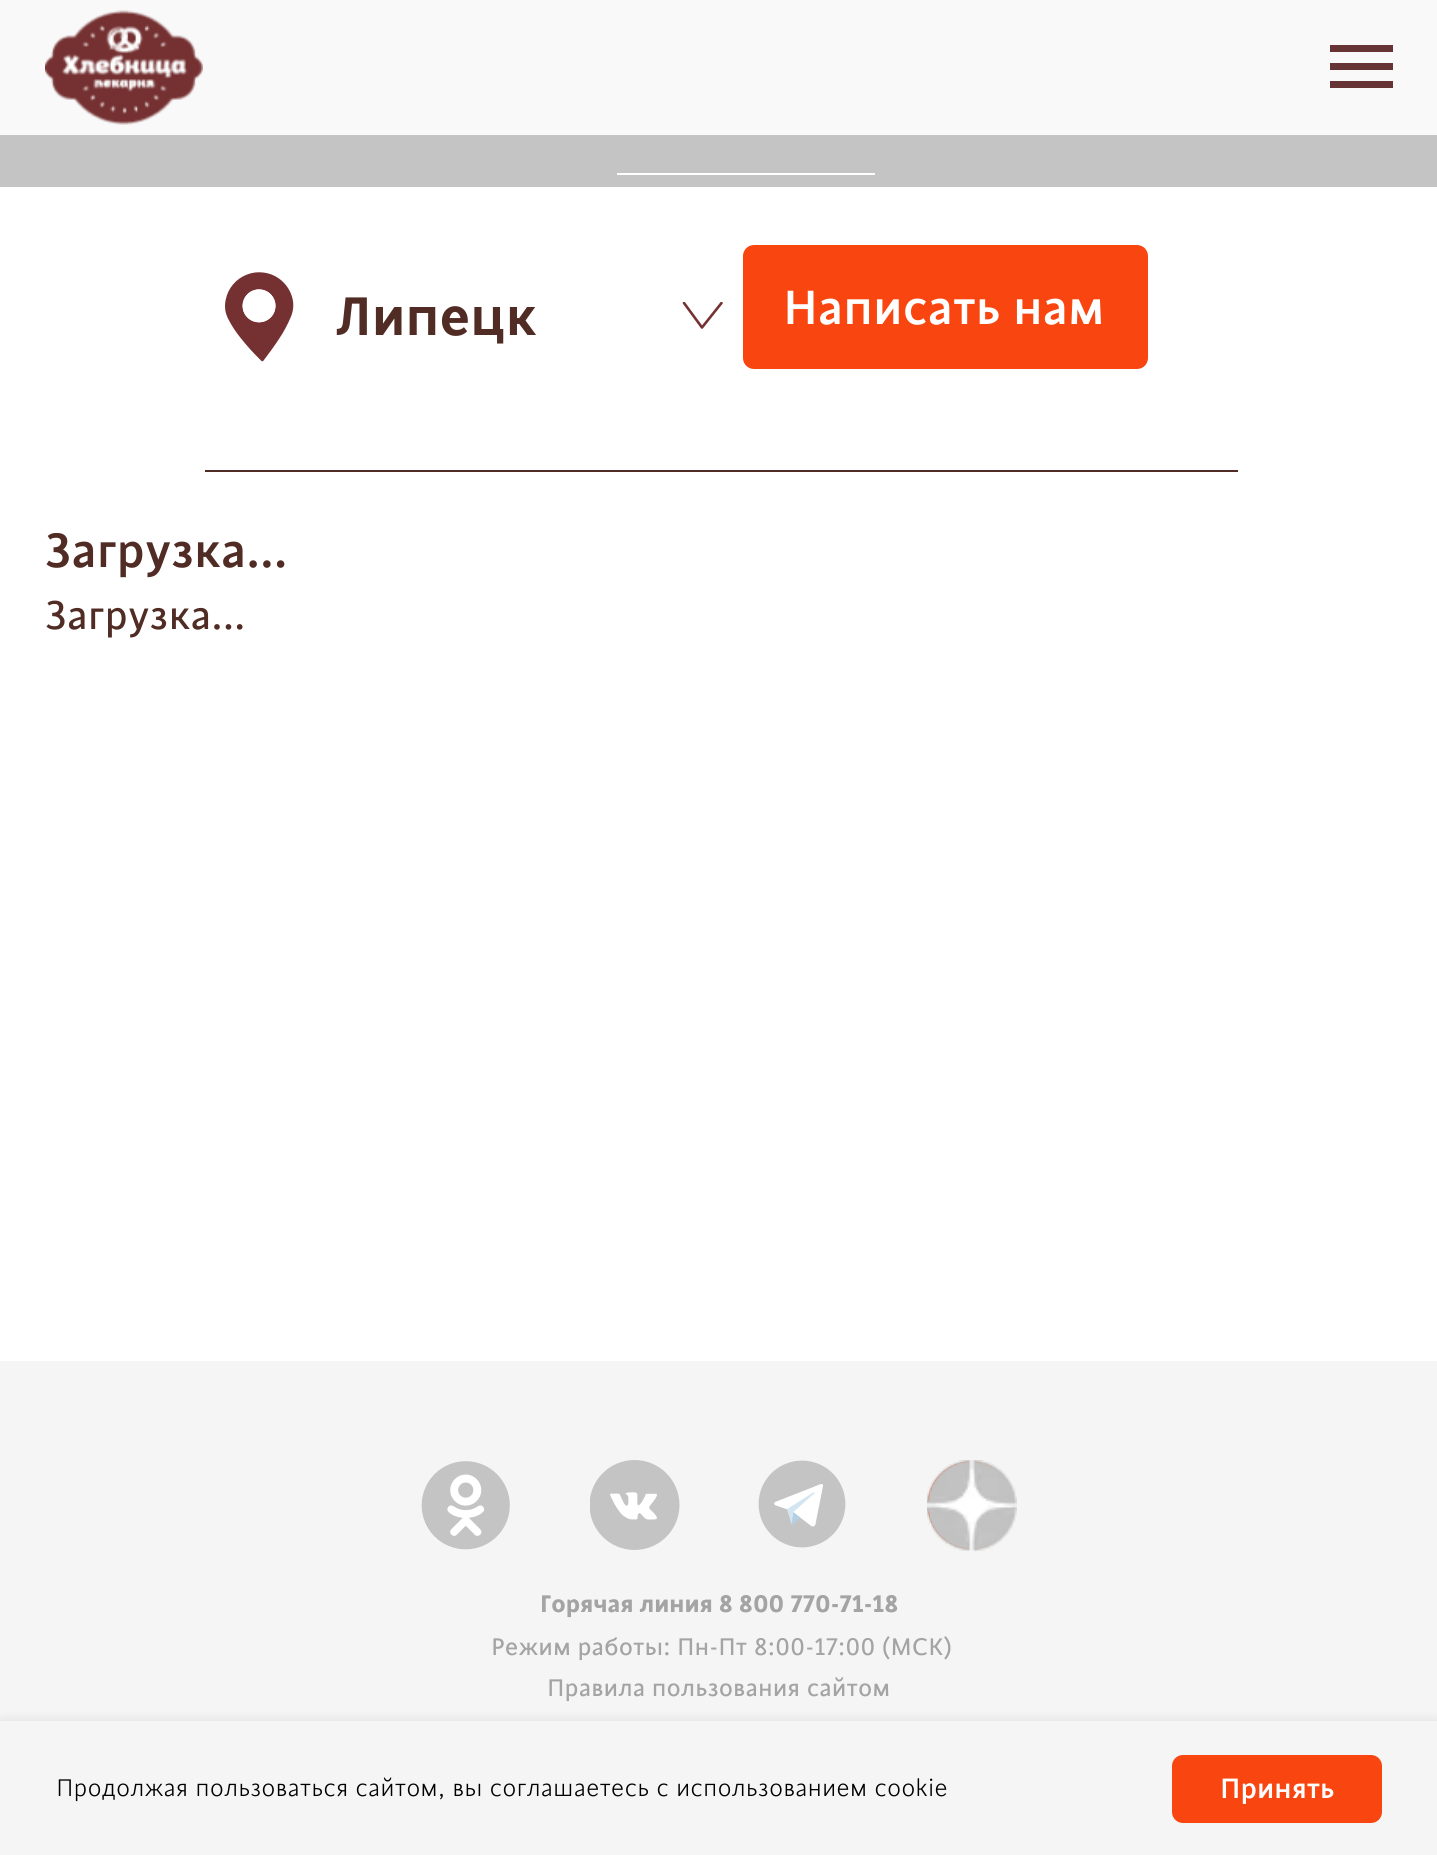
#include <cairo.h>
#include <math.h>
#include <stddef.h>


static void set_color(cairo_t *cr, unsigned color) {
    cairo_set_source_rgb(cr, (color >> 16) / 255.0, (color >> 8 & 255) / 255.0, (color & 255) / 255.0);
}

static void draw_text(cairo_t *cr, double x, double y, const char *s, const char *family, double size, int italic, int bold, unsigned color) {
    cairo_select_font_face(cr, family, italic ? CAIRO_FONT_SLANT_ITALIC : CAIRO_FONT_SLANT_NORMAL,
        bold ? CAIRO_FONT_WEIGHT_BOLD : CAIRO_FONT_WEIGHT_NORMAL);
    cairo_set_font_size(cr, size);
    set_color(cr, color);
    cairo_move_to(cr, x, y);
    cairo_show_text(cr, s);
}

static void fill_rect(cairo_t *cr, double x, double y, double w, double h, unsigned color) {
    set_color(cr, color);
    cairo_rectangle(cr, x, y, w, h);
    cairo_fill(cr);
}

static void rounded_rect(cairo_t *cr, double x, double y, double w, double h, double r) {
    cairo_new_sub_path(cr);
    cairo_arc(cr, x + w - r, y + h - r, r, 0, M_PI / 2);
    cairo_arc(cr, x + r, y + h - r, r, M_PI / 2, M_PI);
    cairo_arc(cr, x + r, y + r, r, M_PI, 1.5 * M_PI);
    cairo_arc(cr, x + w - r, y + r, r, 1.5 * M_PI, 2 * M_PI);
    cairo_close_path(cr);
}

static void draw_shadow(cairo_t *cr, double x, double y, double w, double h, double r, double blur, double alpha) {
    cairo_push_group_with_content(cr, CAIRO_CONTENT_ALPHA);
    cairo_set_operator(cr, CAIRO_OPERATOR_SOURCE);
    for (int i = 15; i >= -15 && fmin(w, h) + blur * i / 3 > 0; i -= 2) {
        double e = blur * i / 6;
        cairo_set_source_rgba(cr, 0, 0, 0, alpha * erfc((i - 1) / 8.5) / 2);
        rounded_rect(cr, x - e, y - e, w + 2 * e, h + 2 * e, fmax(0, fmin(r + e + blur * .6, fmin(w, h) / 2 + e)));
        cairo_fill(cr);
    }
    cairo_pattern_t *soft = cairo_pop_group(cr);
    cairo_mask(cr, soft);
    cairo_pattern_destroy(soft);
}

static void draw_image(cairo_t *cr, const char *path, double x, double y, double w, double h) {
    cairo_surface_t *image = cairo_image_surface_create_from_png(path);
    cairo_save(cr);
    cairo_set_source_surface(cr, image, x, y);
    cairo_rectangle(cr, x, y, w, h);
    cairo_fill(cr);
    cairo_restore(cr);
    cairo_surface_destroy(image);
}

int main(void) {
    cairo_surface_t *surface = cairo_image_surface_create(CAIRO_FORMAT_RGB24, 1437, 1855);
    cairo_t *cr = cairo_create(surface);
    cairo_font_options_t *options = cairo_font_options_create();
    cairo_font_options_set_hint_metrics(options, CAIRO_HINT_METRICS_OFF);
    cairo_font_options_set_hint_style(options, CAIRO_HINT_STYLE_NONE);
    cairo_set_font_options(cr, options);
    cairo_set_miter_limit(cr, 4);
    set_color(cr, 0xFFFFFF);
    cairo_paint(cr);
    fill_rect(cr, 0, 0, 1437, 187, 0xC4C4C4);
    cairo_set_source_rgba(cr, 1, 1, 1, 0.9);
    cairo_rectangle(cr, 0, 0, 1437, 135);
    cairo_fill(cr);
    draw_image(cr, "assets/img1.png", 45, 10, 158, 115);
    fill_rect(cr, 1330, 45, 63, 7, 0x673435);
    fill_rect(cr, 1330, 63, 63, 7, 0x673435);
    fill_rect(cr, 1330, 81, 63, 7, 0x673435);
    fill_rect(cr, 617, 173, 258, 2, 0xFFFFFF);
    draw_image(cr, "assets/img2.png", 225, 272, 69, 90);
    draw_text(cr, 336, 335, "Липецк", "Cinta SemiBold", 61, 0, 0, 0x502C24);
    cairo_save(cr);
    cairo_rectangle(cr, 682, 302, 43, 29);
    cairo_clip(cr);
    cairo_new_path(cr);
    cairo_move_to(cr, 684, 303);
    cairo_line_to(cr, 702, 327.5);
    cairo_line_to(cr, 721.5, 303);
    set_color(cr, 0x753132);
    cairo_set_line_width(cr, 2.6);
    cairo_set_line_cap(cr, CAIRO_LINE_CAP_ROUND);
    cairo_set_line_join(cr, CAIRO_LINE_JOIN_ROUND);
    cairo_stroke(cr);
    cairo_restore(cr);
    set_color(cr, 0xF94610);
    rounded_rect(cr, 743, 245, 405, 124, 11);
    cairo_fill(cr);
    draw_text(cr, 783, 324, "Написать нам", "Cinta Medium", 54, 0, 0, 0xFFFFFF);
    fill_rect(cr, 205, 470, 1033, 2, 0x502C24);
    draw_text(cr, 45, 567, "Загрузка...", "Cinta Medium", 54, 0, 0, 0x502C24);
    draw_text(cr, 45, 629, "Загрузка...", "Cinta", 45, 0, 0, 0x502C24);
    fill_rect(cr, 0, 1361, 1437, 360, 0xF5F5F5);
    draw_image(cr, "assets/img7.png", 422, 1510, 39, 39);
    draw_image(cr, "assets/img3.png", 421, 1461, 89, 89);
    draw_image(cr, "assets/img4.png", 590, 1460, 90, 90);
    draw_image(cr, "assets/img5.png", 758, 1460, 88, 88);
    draw_image(cr, "assets/img8.png", 927, 1461, 88, 89);
    draw_image(cr, "assets/img6.png", 927, 1460, 90, 92);
    draw_text(cr, 540, 1612, "Горячая линия 8 800 770-71-18", "Cinta", 27, 0, 1, 0xA4A4A4);
    draw_text(cr, 491, 1655, "Режим работы: Пн-Пт 8:00-17:00 (МСК)", "Cinta", 27, 0, 0, 0xA4A4A4);
    draw_text(cr, 547, 1696, "Правила пользования сайтом", "Cinta", 27, 0, 0, 0xA4A4A4);
    set_color(cr, 0x000000);
    draw_shadow(cr, 0, 1721, 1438, 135, 0, 5.5, 0.1);
    fill_rect(cr, 0, 1721, 1437, 134, 0xF5F5F5);
    draw_text(cr, 56, 1796, "Продолжая пользоваться сайтом, вы соглашаетесь с использованием cookie", "Cinta Light", 27, 0, 0, 0x000000);
    set_color(cr, 0xF94610);
    rounded_rect(cr, 1173, 1756, 208, 66, 10);
    cairo_fill_preserve(cr);
    cairo_stroke(cr);
    draw_text(cr, 1220, 1798, "Принять", "Cinta Medium", 31.5, 0, 0, 0xFFFFFF);
    cairo_surface_write_to_png(surface, "output.png");
    cairo_font_options_destroy(options);
    cairo_destroy(cr);
    cairo_surface_destroy(surface);
    return 0;
}
